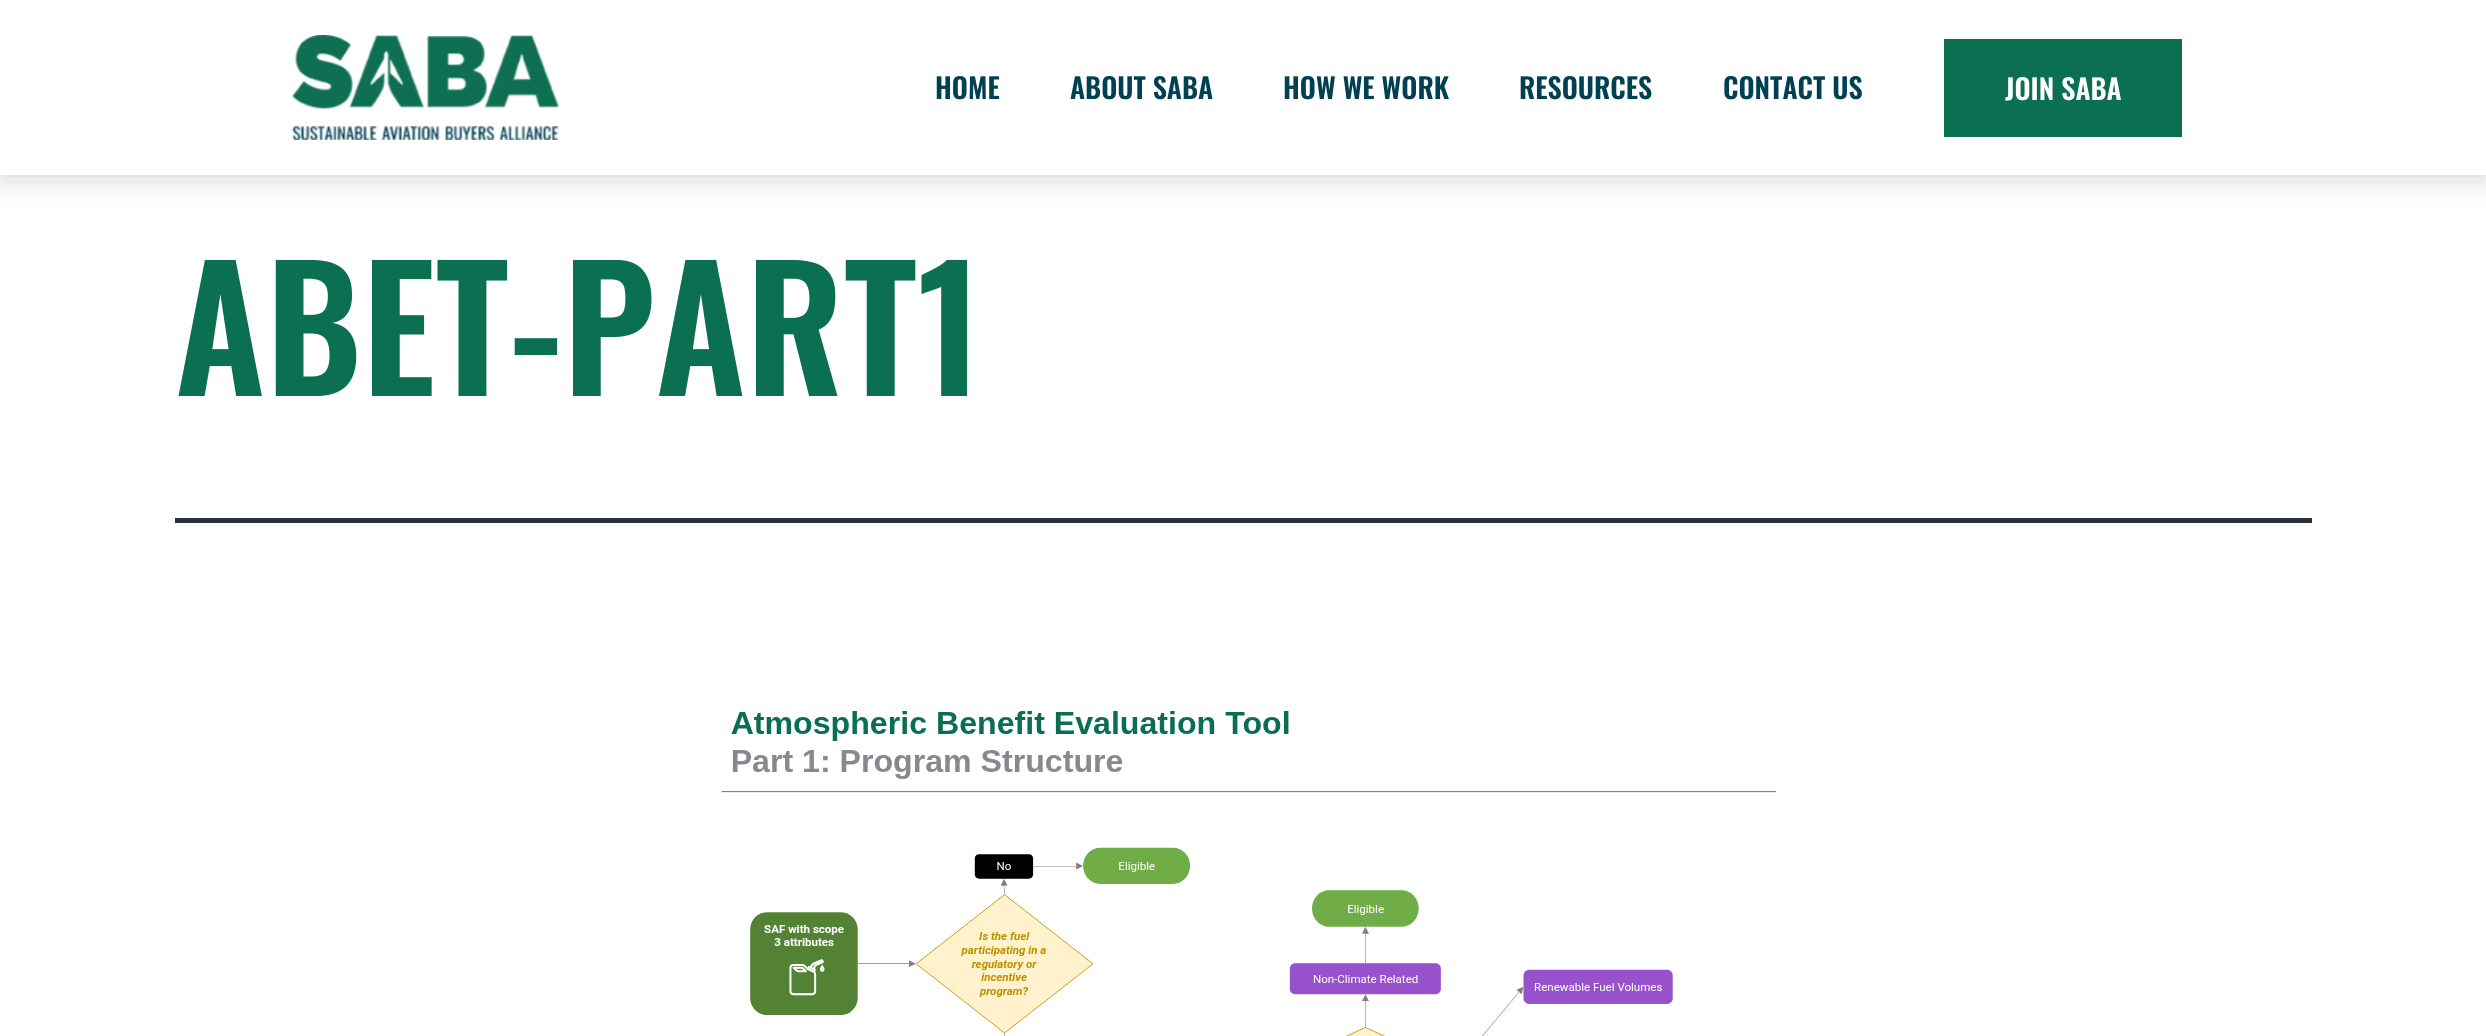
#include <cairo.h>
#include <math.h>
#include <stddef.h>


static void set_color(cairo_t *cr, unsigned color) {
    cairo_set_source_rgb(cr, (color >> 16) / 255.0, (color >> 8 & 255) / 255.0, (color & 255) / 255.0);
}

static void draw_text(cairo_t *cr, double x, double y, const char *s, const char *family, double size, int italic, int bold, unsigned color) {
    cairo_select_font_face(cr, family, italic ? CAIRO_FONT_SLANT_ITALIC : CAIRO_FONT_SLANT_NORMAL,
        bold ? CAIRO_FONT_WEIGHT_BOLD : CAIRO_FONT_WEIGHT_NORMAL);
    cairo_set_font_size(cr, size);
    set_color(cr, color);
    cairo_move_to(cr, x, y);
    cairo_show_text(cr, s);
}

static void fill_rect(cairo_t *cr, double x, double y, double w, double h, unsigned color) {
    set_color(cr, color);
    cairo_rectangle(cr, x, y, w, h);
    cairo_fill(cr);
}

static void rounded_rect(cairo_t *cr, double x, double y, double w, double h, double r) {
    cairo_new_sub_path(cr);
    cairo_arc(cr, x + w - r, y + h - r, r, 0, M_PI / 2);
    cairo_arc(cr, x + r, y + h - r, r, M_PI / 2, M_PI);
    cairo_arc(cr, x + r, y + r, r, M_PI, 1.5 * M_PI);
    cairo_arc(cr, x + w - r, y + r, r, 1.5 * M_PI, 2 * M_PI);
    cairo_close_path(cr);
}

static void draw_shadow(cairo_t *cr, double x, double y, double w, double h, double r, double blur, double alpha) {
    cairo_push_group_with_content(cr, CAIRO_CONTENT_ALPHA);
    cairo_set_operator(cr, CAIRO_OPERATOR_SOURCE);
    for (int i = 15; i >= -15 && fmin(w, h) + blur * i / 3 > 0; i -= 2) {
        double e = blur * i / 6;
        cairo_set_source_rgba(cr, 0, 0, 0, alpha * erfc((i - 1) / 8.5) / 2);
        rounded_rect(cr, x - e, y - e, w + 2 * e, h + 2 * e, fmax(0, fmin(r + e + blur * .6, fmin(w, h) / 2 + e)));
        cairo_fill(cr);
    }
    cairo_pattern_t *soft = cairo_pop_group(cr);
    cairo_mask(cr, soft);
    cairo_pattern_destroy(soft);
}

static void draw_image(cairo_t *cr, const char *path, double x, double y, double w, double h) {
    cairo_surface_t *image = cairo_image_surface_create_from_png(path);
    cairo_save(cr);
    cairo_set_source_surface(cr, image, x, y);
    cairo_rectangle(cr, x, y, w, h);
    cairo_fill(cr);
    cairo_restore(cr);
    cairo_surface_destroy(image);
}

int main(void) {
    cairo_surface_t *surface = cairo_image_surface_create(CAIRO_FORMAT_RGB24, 2486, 1036);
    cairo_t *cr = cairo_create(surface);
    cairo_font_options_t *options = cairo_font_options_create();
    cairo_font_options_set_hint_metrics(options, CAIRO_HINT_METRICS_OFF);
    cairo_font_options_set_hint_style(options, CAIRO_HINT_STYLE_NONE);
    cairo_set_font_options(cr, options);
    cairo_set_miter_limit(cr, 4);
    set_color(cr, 0xFFFFFF);
    cairo_paint(cr);
    set_color(cr, 0x000000);
    draw_shadow(cr, 0, 0, 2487, 175, 0, 17.5, 0.2);
    fill_rect(cr, 0, 0, 2486, 175, 0xFFFFFF);
    draw_image(cr, "assets/img1.png", 291, 35, 268, 105);
    draw_text(cr, 935, 99, "HOME", "Oswald SemiBold", 28, 0, 0, 0x004053);
    draw_text(cr, 1070, 99, "ABOUT SABA", "Oswald SemiBold", 28, 0, 0, 0x004053);
    draw_text(cr, 1283, 99, "HOW WE WORK", "Oswald SemiBold", 28, 0, 0, 0x004053);
    draw_text(cr, 1519, 99, "RESOURCES", "Oswald SemiBold", 28, 0, 0, 0x004053);
    draw_text(cr, 1723, 99, "CONTACT US", "Oswald SemiBold", 28, 0, 0, 0x004053);
    fill_rect(cr, 1944, 39, 238, 98, 0x0B6F52);
    draw_text(cr, 2005, 100, "JOIN SABA", "Oswald SemiBold", 28, 0, 0, 0xFFFFFF);
    fill_rect(cr, 175, 518, 2137, 5, 0x28303D);
    draw_text(cr, 175, 396, "ABET-PART1", "Oswald SemiBold", 168, 0, 0, 0x0B6F52);
    draw_image(cr, "assets/img2.png", 721, 711, 1055, 325);
    cairo_surface_write_to_png(surface, "output.png");
    cairo_font_options_destroy(options);
    cairo_destroy(cr);
    cairo_surface_destroy(surface);
    return 0;
}
